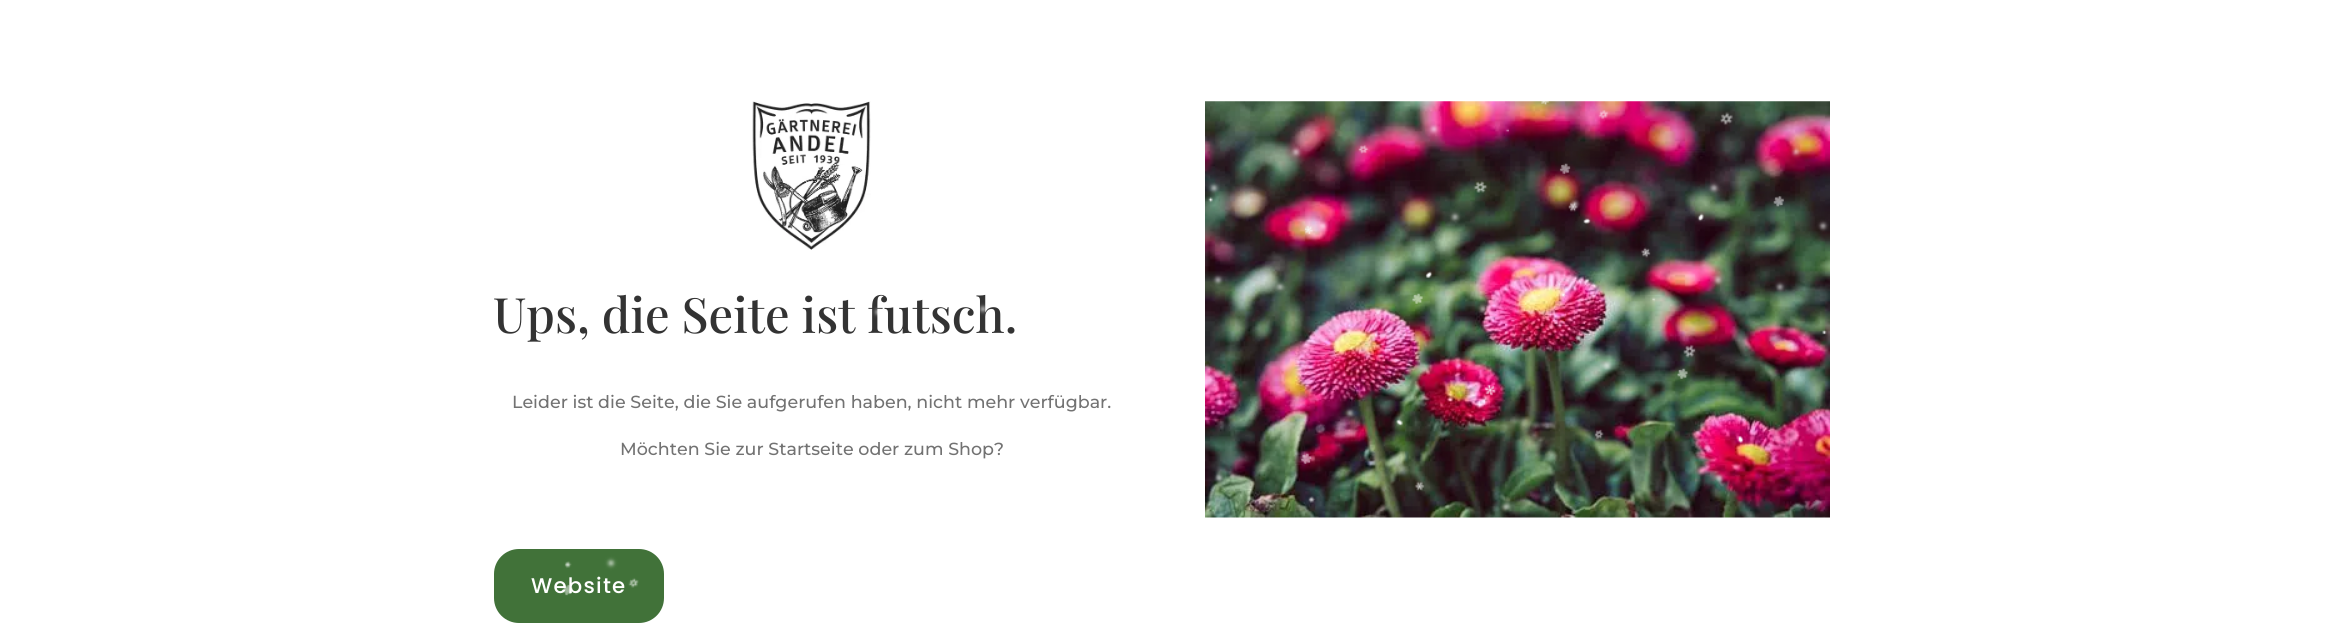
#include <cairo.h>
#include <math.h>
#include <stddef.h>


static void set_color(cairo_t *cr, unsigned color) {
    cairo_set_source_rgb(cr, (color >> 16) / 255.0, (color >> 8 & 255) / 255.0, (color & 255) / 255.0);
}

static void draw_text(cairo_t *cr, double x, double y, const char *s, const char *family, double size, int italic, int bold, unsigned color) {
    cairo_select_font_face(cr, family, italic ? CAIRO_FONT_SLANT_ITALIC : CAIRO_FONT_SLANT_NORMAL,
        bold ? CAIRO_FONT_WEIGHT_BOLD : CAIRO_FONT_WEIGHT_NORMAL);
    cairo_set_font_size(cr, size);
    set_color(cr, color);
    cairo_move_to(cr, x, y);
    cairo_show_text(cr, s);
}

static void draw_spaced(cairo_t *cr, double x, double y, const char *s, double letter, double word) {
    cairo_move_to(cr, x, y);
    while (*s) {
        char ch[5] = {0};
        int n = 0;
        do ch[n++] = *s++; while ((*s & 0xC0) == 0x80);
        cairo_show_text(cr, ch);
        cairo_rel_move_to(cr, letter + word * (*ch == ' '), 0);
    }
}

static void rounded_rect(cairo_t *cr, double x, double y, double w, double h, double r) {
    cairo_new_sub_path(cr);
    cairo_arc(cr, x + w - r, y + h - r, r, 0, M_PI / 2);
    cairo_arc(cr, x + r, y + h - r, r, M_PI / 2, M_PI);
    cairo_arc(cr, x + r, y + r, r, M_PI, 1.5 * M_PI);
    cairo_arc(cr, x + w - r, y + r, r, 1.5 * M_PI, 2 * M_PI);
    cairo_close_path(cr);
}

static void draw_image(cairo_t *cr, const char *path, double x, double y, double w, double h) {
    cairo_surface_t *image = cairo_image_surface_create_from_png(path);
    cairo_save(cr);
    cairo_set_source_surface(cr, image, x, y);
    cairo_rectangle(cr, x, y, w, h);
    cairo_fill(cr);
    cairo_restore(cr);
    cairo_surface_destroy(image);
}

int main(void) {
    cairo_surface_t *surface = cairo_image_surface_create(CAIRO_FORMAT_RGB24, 2336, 642);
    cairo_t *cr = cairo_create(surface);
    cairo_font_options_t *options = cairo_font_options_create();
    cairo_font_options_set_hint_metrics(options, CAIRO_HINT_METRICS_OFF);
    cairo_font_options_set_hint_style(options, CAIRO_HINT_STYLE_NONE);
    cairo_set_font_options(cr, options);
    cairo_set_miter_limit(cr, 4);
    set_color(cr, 0xFFFFFF);
    cairo_paint(cr);
    draw_image(cr, "assets/img2.png", 752, 101, 119, 149);
    draw_text(cr, 493, 333, "Ups, die Seite ist futsch.", "Playfair Display Medium", 48.75, 0, 0, 0x333333);
    draw_text(cr, 512, 408, "Leider ist die Seite, die Sie aufgerufen haben, nicht mehr verfügbar.", "Montserrat Thin", 17.5, 0, 0, 0x727272);
    draw_text(cr, 620, 455, "Möchten Sie zur Startseite oder zum Shop?", "Montserrat Thin", 17.5, 0, 0, 0x727272);
    set_color(cr, 0x417239);
    rounded_rect(cr, 494, 549, 170, 74, 25);
    cairo_fill(cr);
    cairo_select_font_face(cr, "Poppins Medium", CAIRO_FONT_SLANT_NORMAL, CAIRO_FONT_WEIGHT_NORMAL);
    cairo_set_font_size(cr, 21.25);
    set_color(cr, 0xFFFFFF);
    draw_spaced(cr, 531, 593, "Website", 1.25, 0);
    draw_image(cr, "assets/img3.png", 1205, 101, 625, 417);
    draw_image(cr, "assets/img1.png", 562, 101, 1267, 495);
    cairo_surface_write_to_png(surface, "output.png");
    cairo_font_options_destroy(options);
    cairo_destroy(cr);
    cairo_surface_destroy(surface);
    return 0;
}
